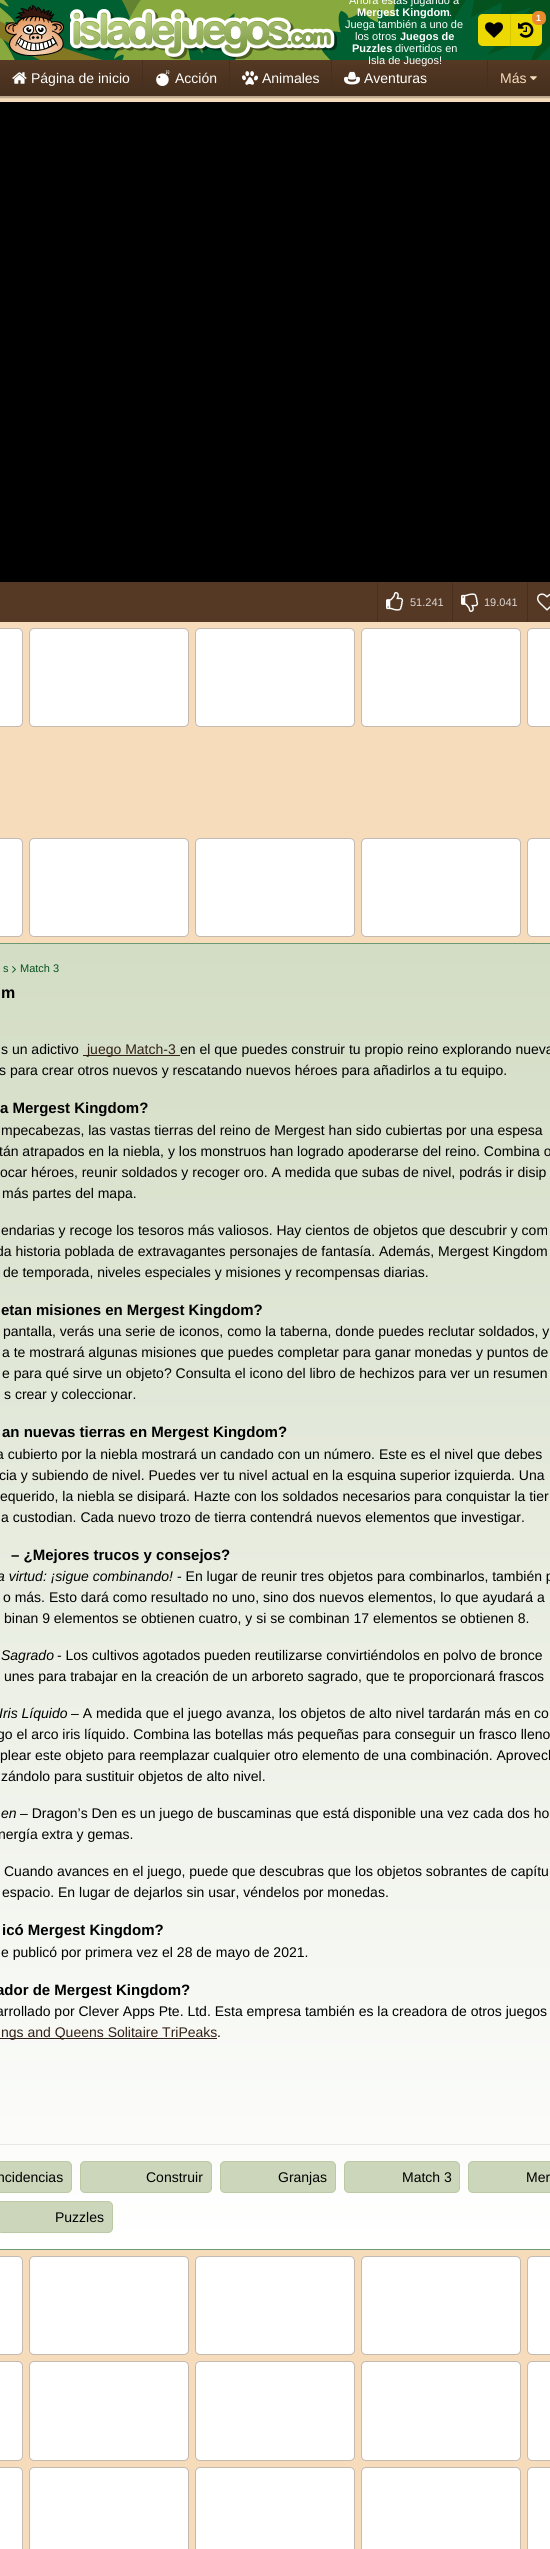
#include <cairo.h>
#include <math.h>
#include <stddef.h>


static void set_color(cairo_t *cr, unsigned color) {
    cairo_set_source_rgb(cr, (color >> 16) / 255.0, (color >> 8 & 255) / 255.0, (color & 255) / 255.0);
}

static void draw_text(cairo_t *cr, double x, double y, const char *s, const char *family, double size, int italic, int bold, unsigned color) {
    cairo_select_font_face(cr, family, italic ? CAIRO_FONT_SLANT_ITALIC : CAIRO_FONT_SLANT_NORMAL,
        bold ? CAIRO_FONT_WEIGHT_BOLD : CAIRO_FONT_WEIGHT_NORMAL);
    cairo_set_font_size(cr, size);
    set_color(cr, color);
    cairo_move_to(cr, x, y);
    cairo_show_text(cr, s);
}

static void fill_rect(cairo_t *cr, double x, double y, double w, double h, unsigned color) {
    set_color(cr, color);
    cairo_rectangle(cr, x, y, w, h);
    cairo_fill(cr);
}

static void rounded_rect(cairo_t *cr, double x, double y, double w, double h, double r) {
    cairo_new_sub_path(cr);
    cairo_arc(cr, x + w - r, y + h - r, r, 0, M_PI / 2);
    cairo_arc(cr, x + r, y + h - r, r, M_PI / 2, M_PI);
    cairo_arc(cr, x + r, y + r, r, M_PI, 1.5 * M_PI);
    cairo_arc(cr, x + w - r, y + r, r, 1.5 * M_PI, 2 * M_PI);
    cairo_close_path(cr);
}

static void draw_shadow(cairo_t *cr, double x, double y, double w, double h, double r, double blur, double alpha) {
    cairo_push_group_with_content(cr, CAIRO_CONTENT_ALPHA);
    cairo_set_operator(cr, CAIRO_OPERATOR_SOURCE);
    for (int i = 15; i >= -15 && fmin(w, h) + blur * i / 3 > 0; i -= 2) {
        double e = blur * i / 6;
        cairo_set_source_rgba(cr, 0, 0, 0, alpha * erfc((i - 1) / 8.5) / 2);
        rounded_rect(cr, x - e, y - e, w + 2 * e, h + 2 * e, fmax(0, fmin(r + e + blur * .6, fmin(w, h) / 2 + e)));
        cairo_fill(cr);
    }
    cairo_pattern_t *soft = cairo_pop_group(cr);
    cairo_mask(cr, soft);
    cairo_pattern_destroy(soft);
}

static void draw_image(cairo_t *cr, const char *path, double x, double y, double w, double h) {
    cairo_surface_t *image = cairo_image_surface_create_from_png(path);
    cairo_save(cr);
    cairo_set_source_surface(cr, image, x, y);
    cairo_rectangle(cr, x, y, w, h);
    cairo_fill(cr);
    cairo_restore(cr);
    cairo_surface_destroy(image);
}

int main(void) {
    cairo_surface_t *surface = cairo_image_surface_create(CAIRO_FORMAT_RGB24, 550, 2549);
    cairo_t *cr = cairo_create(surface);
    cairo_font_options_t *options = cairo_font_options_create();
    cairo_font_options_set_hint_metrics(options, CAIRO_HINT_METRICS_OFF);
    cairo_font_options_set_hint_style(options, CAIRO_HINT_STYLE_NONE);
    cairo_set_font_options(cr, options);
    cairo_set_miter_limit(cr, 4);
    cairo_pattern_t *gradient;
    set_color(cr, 0xF7DCBC);
    cairo_paint(cr);
    fill_rect(cr, 121, 0, 20, 18, 0x638331);
    set_color(cr, 0x000000);
    draw_shadow(cr, -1, 60, 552, 38, 0, 0.5, 0.25);
    draw_image(cr, "assets/img1.png", 0, 0, 550, 60);
    draw_image(cr, "assets/img2.png", 5, 5, 332, 54);
    draw_text(cr, 349, 4, "Ahora estás jugando a", "Liberation Sans", 11, 0, 0, 0xFFFFFF);
    draw_text(cr, 357, 16, "Mergest Kingdom", "Liberation Sans", 11, 0, 1, 0xFFFFFF);
    draw_text(cr, 449, 16, ".", "Liberation Sans", 11, 0, 0, 0xFFFFFF);
    draw_text(cr, 345, 28, "Juega también a uno de", "Liberation Sans", 11, 0, 0, 0xFFFFFF);
    draw_text(cr, 355, 40, "los otros", "Liberation Sans", 11, 0, 0, 0xFFFFFF);
    draw_text(cr, 400, 40, "Juegos de", "Liberation Sans", 11, 0, 1, 0xFFFFFF);
    draw_text(cr, 352, 52, "Puzzles", "Liberation Sans", 11, 0, 1, 0xFFFFFF);
    draw_text(cr, 395, 52, "divertidos en", "Liberation Sans", 11, 0, 0, 0xFFFFFF);
    gradient = cairo_pattern_create_linear(275, 60, 275, 96);
    cairo_pattern_add_color_stop_rgba(gradient, 0, 0.333, 0.224, 0.141, 1);
    cairo_pattern_add_color_stop_rgba(gradient, 1, 0.267, 0.18, 0.114, 1);
    cairo_set_source(cr, gradient);
    cairo_pattern_destroy(gradient);
    cairo_rectangle(cr, 0, 60, 550, 36);
    cairo_fill(cr);
    draw_text(cr, 368, 64, "Isla de Juegos!", "Liberation Sans", 11, 0, 0, 0xFFFFFF);
    set_color(cr, 0xECD901);
    cairo_new_path(cr);
    cairo_move_to(cr, 483, 14);
    cairo_line_to(cr, 510, 14);
    cairo_line_to(cr, 510, 46);
    cairo_line_to(cr, 483, 46);
    cairo_curve_to(cr, 480, 46, 478, 44, 478, 41);
    cairo_line_to(cr, 478, 19);
    cairo_curve_to(cr, 478, 16, 480, 14, 483, 14);
    cairo_close_path(cr);
    cairo_fill(cr);
    draw_image(cr, "assets/img3.png", 485, 22, 18, 16);
    cairo_new_path(cr);
    cairo_move_to(cr, 510, 14);
    cairo_line_to(cr, 537, 14);
    cairo_curve_to(cr, 540, 14, 542, 16, 542, 19);
    cairo_line_to(cr, 542, 41);
    cairo_curve_to(cr, 542, 44, 540, 46, 537, 46);
    cairo_line_to(cr, 510, 46);
    cairo_close_path(cr);
    cairo_fill(cr);
    set_color(cr, 0xD8C601);
    cairo_new_path(cr);
    cairo_move_to(cr, 510, 14);
    cairo_line_to(cr, 510, 46);
    cairo_line_to(cr, 511, 45);
    cairo_line_to(cr, 511, 15);
    cairo_close_path(cr);
    cairo_fill(cr);
    draw_image(cr, "assets/img4.png", 518, 22, 16, 16);
    set_color(cr, 0xE98B2C);
    rounded_rect(cr, 532, 11, 14, 14, 6);
    cairo_fill(cr);
    draw_text(cr, 536, 21, "1", "Liberation Sans", 9, 0, 1, 0xFFFFFF);
    draw_image(cr, "assets/img5.png", 12, 72, 15, 12);
    draw_text(cr, 31, 83, "Página de inicio", "Liberation Sans", 14, 0, 0, 0xFFFFFF);
    fill_rect(cr, 142, 60, 1, 26, 0x462F1E);
    draw_image(cr, "assets/img6.png", 156, 70, 14, 16);
    draw_text(cr, 175, 83, "Acción", "Liberation Sans", 14, 0, 0, 0xFFFFFF);
    fill_rect(cr, 229, 60, 1, 26, 0x462F1E);
    draw_image(cr, "assets/img7.png", 242, 71, 16, 14);
    draw_text(cr, 262, 83, "Animales", "Liberation Sans", 14, 0, 0, 0xFFFFFF);
    fill_rect(cr, 331, 60, 1, 26, 0x462F1E);
    draw_image(cr, "assets/img8.png", 344, 71, 16, 14);
    draw_text(cr, 364, 83, "Aventuras", "Liberation Sans", 14, 0, 0, 0xFFFFFF);
    set_color(cr, 0x462F1E);
    cairo_new_path(cr);
    cairo_move_to(cr, 487, 96);
    cairo_line_to(cr, 487, 60);
    cairo_line_to(cr, 488, 61);
    cairo_line_to(cr, 488, 95);
    cairo_close_path(cr);
    cairo_fill(cr);
    draw_text(cr, 500, 83, "Más", "Liberation Sans", 14, 0, 0, 0xF7DCBC);
    draw_image(cr, "assets/img9.png", 530, 76, 7, 5);
    fill_rect(cr, 0, 102, 550, 480, 0x000000);
    fill_rect(cr, 0, 582, 550, 40, 0x553924);
    set_color(cr, 0x462F1E);
    cairo_new_path(cr);
    cairo_move_to(cr, 377, 622);
    cairo_line_to(cr, 377, 582);
    cairo_line_to(cr, 378, 583);
    cairo_line_to(cr, 378, 621);
    cairo_close_path(cr);
    cairo_fill(cr);
    draw_image(cr, "assets/img10.png", 386, 592, 18, 19);
    draw_text(cr, 410, 606, "51.241", "Liberation Sans", 11, 0, 0, 0xDDD7D3);
    set_color(cr, 0x462F1E);
    cairo_new_path(cr);
    cairo_move_to(cr, 452, 622);
    cairo_line_to(cr, 452, 582);
    cairo_line_to(cr, 453, 583);
    cairo_line_to(cr, 453, 621);
    cairo_close_path(cr);
    cairo_fill(cr);
    draw_image(cr, "assets/img11.png", 461, 593, 18, 19);
    draw_text(cr, 484, 606, "19.041", "Liberation Sans", 11, 0, 0, 0xDDD7D3);
    set_color(cr, 0x462F1E);
    cairo_new_path(cr);
    cairo_move_to(cr, 527, 622);
    cairo_line_to(cr, 527, 582);
    cairo_line_to(cr, 528, 583);
    cairo_line_to(cr, 528, 621);
    cairo_close_path(cr);
    cairo_fill(cr);
    draw_image(cr, "assets/img12.png", 537, 593, 13, 18);
    set_color(cr, 0xFFFFFF);
    rounded_rect(cr, -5, 628, 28, 99, 5);
    cairo_fill(cr);
    rounded_rect(cr, -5.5, 628.5, 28, 98, 4.5);
    cairo_set_source_rgba(cr, 0.333, 0.224, 0.141, 0.35);
    cairo_set_line_width(cr, 1);
    cairo_stroke(cr);
    set_color(cr, 0xFFFFFF);
    rounded_rect(cr, 29, 628, 160, 99, 5);
    cairo_fill(cr);
    rounded_rect(cr, 29.5, 628.5, 159, 98, 4.5);
    cairo_set_source_rgba(cr, 0.333, 0.224, 0.141, 0.35);
    cairo_stroke(cr);
    set_color(cr, 0xFFFFFF);
    rounded_rect(cr, 195, 628, 160, 99, 5);
    cairo_fill(cr);
    rounded_rect(cr, 195.5, 628.5, 159, 98, 4.5);
    cairo_set_source_rgba(cr, 0.333, 0.224, 0.141, 0.35);
    cairo_stroke(cr);
    set_color(cr, 0xFFFFFF);
    rounded_rect(cr, 361, 628, 160, 99, 5);
    cairo_fill(cr);
    rounded_rect(cr, 361.5, 628.5, 159, 98, 4.5);
    cairo_set_source_rgba(cr, 0.333, 0.224, 0.141, 0.35);
    cairo_stroke(cr);
    set_color(cr, 0xFFFFFF);
    rounded_rect(cr, 527, 628, 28, 99, 5);
    cairo_fill(cr);
    rounded_rect(cr, 527.5, 628.5, 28, 98, 4.5);
    cairo_set_source_rgba(cr, 0.333, 0.224, 0.141, 0.35);
    cairo_stroke(cr);
    set_color(cr, 0xFFFFFF);
    rounded_rect(cr, -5, 838, 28, 99, 5);
    cairo_fill(cr);
    rounded_rect(cr, -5.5, 838.5, 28, 98, 4.5);
    cairo_set_source_rgba(cr, 0.333, 0.224, 0.141, 0.35);
    cairo_stroke(cr);
    set_color(cr, 0xFFFFFF);
    rounded_rect(cr, 29, 838, 160, 99, 5);
    cairo_fill(cr);
    rounded_rect(cr, 29.5, 838.5, 159, 98, 4.5);
    cairo_set_source_rgba(cr, 0.333, 0.224, 0.141, 0.35);
    cairo_stroke(cr);
    set_color(cr, 0xFFFFFF);
    rounded_rect(cr, 195, 838, 160, 99, 5);
    cairo_fill(cr);
    rounded_rect(cr, 195.5, 838.5, 159, 98, 4.5);
    cairo_set_source_rgba(cr, 0.333, 0.224, 0.141, 0.35);
    cairo_stroke(cr);
    set_color(cr, 0xFFFFFF);
    rounded_rect(cr, 361, 838, 160, 99, 5);
    cairo_fill(cr);
    rounded_rect(cr, 361.5, 838.5, 159, 98, 4.5);
    cairo_set_source_rgba(cr, 0.333, 0.224, 0.141, 0.35);
    cairo_stroke(cr);
    set_color(cr, 0xFFFFFF);
    rounded_rect(cr, 527, 838, 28, 99, 5);
    cairo_fill(cr);
    rounded_rect(cr, 527.5, 838.5, 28, 98, 4.5);
    cairo_set_source_rgba(cr, 0.333, 0.224, 0.141, 0.35);
    cairo_stroke(cr);
    gradient = cairo_pattern_create_linear(275, 944, 275, 2249);
    cairo_pattern_add_color_stop_rgba(gradient, 0, 0.827, 0.863, 0.769, 1);
    cairo_pattern_add_color_stop_rgba(gradient, 1, 1, 1, 1, 1);
    cairo_set_source(cr, gradient);
    cairo_pattern_destroy(gradient);
    cairo_rectangle(cr, 0, 944, 550, 1305);
    cairo_fill(cr);
    cairo_rectangle(cr, -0.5, 943.5, 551, 1306);
    set_color(cr, 0x6C9872);
    cairo_stroke(cr);
    draw_text(cr, 3, 972, "s", "Liberation Sans", 11, 0, 0, 0x05531F);
    draw_image(cr, "assets/img13.png", 12, 966, 4, 7);
    draw_text(cr, 20, 972, "Match 3", "Liberation Sans", 11, 0, 0, 0x05531F);
    draw_text(cr, 1, 998, "m", "Liberation Sans", 16, 0, 1, 0x000000);
    draw_text(cr, 1, 1054, "s un adictivo", "Liberation Sans", 14, 0, 0, 0x000000);
    fill_rect(cr, 83, 1055, 97, 1, 0x312115);
    draw_text(cr, 87, 1054, "juego Match-3", "Liberation Sans", 14, 0, 0, 0x312115);
    draw_text(cr, 180, 1054, "en el que puedes construir tu propio reino explorando nueva", "Liberation Sans", 14, 0, 0, 0x000000);
    draw_text(cr, -1, 1075, "s para crear otros nuevos y rescatando nuevos héroes para añadirlos a tu equipo.", "Liberation Sans", 14, 0, 0, 0x000000);
    draw_text(cr, 0, 1113, "a Mergest Kingdom?", "Liberation Sans", 15, 0, 1, 0x000000);
    draw_text(cr, 1, 1135, "mpecabezas, las vastas tierras del reino de Mergest han sido cubiertas por una espesa", "Liberation Sans", 14, 0, 0, 0x000000);
    draw_text(cr, -1, 1156, "tán atrapados en la niebla, y los monstruos han logrado apoderarse del reino. Combina o", "Liberation Sans", 14, 0, 0, 0x000000);
    draw_text(cr, 0, 1177, "ocar héroes, reunir soldados y recoger oro. A medida que subas de nivel, podrás ir disip", "Liberation Sans", 14, 0, 0, 0x000000);
    draw_text(cr, 2, 1198, "más partes del mapa.", "Liberation Sans", 14, 0, 0, 0x000000);
    draw_text(cr, 1, 1235, "endarias y recoge los tesoros más valiosos. Hay cientos de objetos que descubrir y com", "Liberation Sans", 14, 0, 0, 0x000000);
    draw_text(cr, -4, 1256, "da historia poblada de extravagantes personajes de fantasía. Además, Mergest Kingdom", "Liberation Sans", 14, 0, 0, 0x000000);
    draw_text(cr, 3, 1277, "de temporada, niveles especiales y misiones y recompensas diarias.", "Liberation Sans", 14, 0, 0, 0x000000);
    draw_text(cr, 1, 1315, "etan misiones en Mergest Kingdom?", "Liberation Sans", 15, 0, 1, 0x000000);
    draw_text(cr, 3, 1336, "pantalla, verás una serie de iconos, como la taberna, donde puedes reclutar soldados, y", "Liberation Sans", 14, 0, 0, 0x000000);
    draw_text(cr, 2, 1357, "a te mostrará algunas misiones que puedes completar para ganar monedas y puntos de", "Liberation Sans", 14, 0, 0, 0x000000);
    draw_text(cr, 2, 1378, "e para qué sirve un objeto? Consulta el icono del libro de hechizos para ver un resumen", "Liberation Sans", 14, 0, 0, 0x000000);
    draw_text(cr, 4, 1399, "s crear y coleccionar.", "Liberation Sans", 14, 0, 0, 0x000000);
    draw_text(cr, 2, 1437, "an nuevas tierras en Mergest Kingdom?", "Liberation Sans", 15, 0, 1, 0x000000);
    draw_text(cr, -4, 1459, "a cubierto por la niebla mostrará un candado con un número. Este es el nivel que debes", "Liberation Sans", 14, 0, 0, 0x000000);
    draw_text(cr, -1, 1480, "cia y subiendo de nivel. Puedes ver tu nivel actual en la esquina superior izquierda. Una", "Liberation Sans", 14, 0, 0, 0x000000);
    draw_text(cr, 0, 1501, "equerido, la niebla se disipará. Hazte con los soldados necesarios para conquistar la tier", "Liberation Sans", 14, 0, 0, 0x000000);
    draw_text(cr, 1, 1522, "a custodian. Cada nuevo trozo de tierra contendrá nuevos elementos que investigar.", "Liberation Sans", 14, 0, 0, 0x000000);
    draw_text(cr, 11, 1560, "– ¿Mejores trucos y consejos?", "Liberation Sans", 15, 0, 1, 0x000000);
    draw_text(cr, -3, 1581, "a virtud: ¡sigue combinando!", "Liberation Sans", 14, 1, 0, 0x000000);
    draw_text(cr, 177, 1581, "- En lugar de reunir tres objetos para combinarlos, también p", "Liberation Sans", 14, 0, 0, 0x000000);
    draw_text(cr, 3, 1602, "o más. Esto dará como resultado no uno, sino dos nuevos elementos, lo que ayudará a", "Liberation Sans", 14, 0, 0, 0x000000);
    draw_text(cr, 4, 1623, "binan 9 elementos se obtienen cuatro, y si se combinan 17 elementos se obtienen 8.", "Liberation Sans", 14, 0, 0, 0x000000);
    draw_text(cr, 1, 1660, "Sagrado", "Liberation Sans", 14, 1, 0, 0x000000);
    draw_text(cr, 57, 1660, "- Los cultivos agotados pueden reutilizarse convirtiéndolos en polvo de bronce", "Liberation Sans", 14, 0, 0, 0x000000);
    draw_text(cr, 4, 1681, "unes para trabajar en la creación de un arboreto sagrado, que te proporcionará frascos", "Liberation Sans", 14, 0, 0, 0x000000);
    draw_text(cr, -1, 1718, "Iris Líquido", "Liberation Sans", 14, 1, 0, 0x000000);
    draw_text(cr, 71, 1718, "– A medida que el juego avanza, los objetos de alto nivel tardarán más en co", "Liberation Sans", 14, 0, 0, 0x000000);
    draw_text(cr, -3, 1739, "go el arco iris líquido. Combina las botellas más pequeñas para conseguir un frasco lleno", "Liberation Sans", 14, 0, 0, 0x000000);
    draw_text(cr, 0, 1760, "plear este objeto para reemplazar cualquier otro elemento de una combinación. Aprovech", "Liberation Sans", 14, 0, 0, 0x000000);
    draw_text(cr, 1, 1781, "zándolo para sustituir objetos de alto nivel.", "Liberation Sans", 14, 0, 0, 0x000000);
    draw_text(cr, 1, 1818, "en", "Liberation Sans", 14, 1, 0, 0x000000);
    draw_text(cr, 20, 1818, "– Dragon’s Den es un juego de buscaminas que está disponible una vez cada dos ho", "Liberation Sans", 14, 0, 0, 0x000000);
    draw_text(cr, -2, 1839, "nergía extra y gemas.", "Liberation Sans", 14, 0, 0, 0x000000);
    draw_text(cr, 4, 1876, "Cuando avances en el juego, puede que descubras que los objetos sobrantes de capítu", "Liberation Sans", 14, 0, 0, 0x000000);
    draw_text(cr, 2, 1897, "espacio. En lugar de dejarlos sin usar, véndelos por monedas.", "Liberation Sans", 14, 0, 0, 0x000000);
    draw_text(cr, 2, 1935, "icó Mergest Kingdom?", "Liberation Sans", 15, 0, 1, 0x000000);
    draw_text(cr, 1, 1957, "e publicó por primera vez el 28 de mayo de 2021.", "Liberation Sans", 14, 0, 0, 0x000000);
    draw_text(cr, -4, 1995, "ador de Mergest Kingdom?", "Liberation Sans", 15, 0, 1, 0x000000);
    draw_text(cr, -4, 2016, "arrollado por Clever Apps Pte. Ltd. Esta empresa también es la creadora de otros juegos", "Liberation Sans", 14, 0, 0, 0x000000);
    fill_rect(cr, 0, 2038, 217, 1, 0x312115);
    draw_text(cr, 1, 2037, "ngs and Queens Solitaire TriPeaks", "Liberation Sans", 14, 0, 0, 0x312115);
    draw_text(cr, 217, 2037, ".", "Liberation Sans", 14, 0, 0, 0x000000);
    fill_rect(cr, 0, 2144, 550, 1, 0xE7E8E6);
    set_color(cr, 0xCCD6BA);
    rounded_rect(cr, -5.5, 2161.5, 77, 31, 4.5);
    cairo_fill_preserve(cr);
    set_color(cr, 0xBBC9A4);
    cairo_stroke(cr);
    draw_text(cr, -3, 2182, "ncidencias", "Liberation Sans", 14, 0, 0, 0x000000);
    set_color(cr, 0xCCD6BA);
    rounded_rect(cr, 80.5, 2161.5, 131, 31, 4.5);
    cairo_fill_preserve(cr);
    set_color(cr, 0xBBC9A4);
    cairo_stroke(cr);
    draw_text(cr, 146, 2182, "Construir", "Liberation Sans", 14, 0, 0, 0x000000);
    set_color(cr, 0xCCD6BA);
    rounded_rect(cr, 220.5, 2161.5, 115, 31, 4.5);
    cairo_fill_preserve(cr);
    set_color(cr, 0xBBC9A4);
    cairo_stroke(cr);
    draw_text(cr, 278, 2182, "Granjas", "Liberation Sans", 14, 0, 0, 0x000000);
    set_color(cr, 0xCCD6BA);
    rounded_rect(cr, 344.5, 2161.5, 115, 31, 4.5);
    cairo_fill_preserve(cr);
    set_color(cr, 0xBBC9A4);
    cairo_stroke(cr);
    draw_text(cr, 402, 2182, "Match 3", "Liberation Sans", 14, 0, 0, 0x000000);
    set_color(cr, 0xCCD6BA);
    rounded_rect(cr, 468.5, 2161.5, 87, 31, 4.5);
    cairo_fill_preserve(cr);
    set_color(cr, 0xBBC9A4);
    cairo_stroke(cr);
    draw_text(cr, 526, 2182, "Mer", "Liberation Sans", 14, 0, 0, 0x000000);
    set_color(cr, 0xCCD6BA);
    rounded_rect(cr, -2.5, 2201.5, 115, 31, 4.5);
    cairo_fill_preserve(cr);
    set_color(cr, 0xBBC9A4);
    cairo_stroke(cr);
    draw_text(cr, 55, 2222, "Puzzles", "Liberation Sans", 14, 0, 0, 0x000000);
    set_color(cr, 0xFFFFFF);
    rounded_rect(cr, -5, 2256, 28, 99, 5);
    cairo_fill(cr);
    rounded_rect(cr, -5.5, 2256.5, 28, 98, 4.5);
    cairo_set_source_rgba(cr, 0.333, 0.224, 0.141, 0.35);
    cairo_stroke(cr);
    set_color(cr, 0xFFFFFF);
    rounded_rect(cr, 29, 2256, 160, 99, 5);
    cairo_fill(cr);
    rounded_rect(cr, 29.5, 2256.5, 159, 98, 4.5);
    cairo_set_source_rgba(cr, 0.333, 0.224, 0.141, 0.35);
    cairo_stroke(cr);
    set_color(cr, 0xFFFFFF);
    rounded_rect(cr, 195, 2256, 160, 99, 5);
    cairo_fill(cr);
    rounded_rect(cr, 195.5, 2256.5, 159, 98, 4.5);
    cairo_set_source_rgba(cr, 0.333, 0.224, 0.141, 0.35);
    cairo_stroke(cr);
    set_color(cr, 0xFFFFFF);
    rounded_rect(cr, 361, 2256, 160, 99, 5);
    cairo_fill(cr);
    rounded_rect(cr, 361.5, 2256.5, 159, 98, 4.5);
    cairo_set_source_rgba(cr, 0.333, 0.224, 0.141, 0.35);
    cairo_stroke(cr);
    set_color(cr, 0xFFFFFF);
    rounded_rect(cr, 527, 2256, 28, 99, 5);
    cairo_fill(cr);
    rounded_rect(cr, 527.5, 2256.5, 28, 98, 4.5);
    cairo_set_source_rgba(cr, 0.333, 0.224, 0.141, 0.35);
    cairo_stroke(cr);
    set_color(cr, 0xFFFFFF);
    rounded_rect(cr, -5, 2361, 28, 100, 5);
    cairo_fill(cr);
    rounded_rect(cr, -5.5, 2361.5, 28, 99, 4.5);
    cairo_set_source_rgba(cr, 0.333, 0.224, 0.141, 0.35);
    cairo_stroke(cr);
    set_color(cr, 0xFFFFFF);
    rounded_rect(cr, 29, 2361, 160, 100, 5);
    cairo_fill(cr);
    rounded_rect(cr, 29.5, 2361.5, 159, 99, 4.5);
    cairo_set_source_rgba(cr, 0.333, 0.224, 0.141, 0.35);
    cairo_stroke(cr);
    set_color(cr, 0xFFFFFF);
    rounded_rect(cr, 195, 2361, 160, 100, 5);
    cairo_fill(cr);
    rounded_rect(cr, 195.5, 2361.5, 159, 99, 4.5);
    cairo_set_source_rgba(cr, 0.333, 0.224, 0.141, 0.35);
    cairo_stroke(cr);
    set_color(cr, 0xFFFFFF);
    rounded_rect(cr, 361, 2361, 160, 100, 5);
    cairo_fill(cr);
    rounded_rect(cr, 361.5, 2361.5, 159, 99, 4.5);
    cairo_set_source_rgba(cr, 0.333, 0.224, 0.141, 0.35);
    cairo_stroke(cr);
    set_color(cr, 0xFFFFFF);
    rounded_rect(cr, 527, 2361, 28, 100, 5);
    cairo_fill(cr);
    rounded_rect(cr, 527.5, 2361.5, 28, 99, 4.5);
    cairo_set_source_rgba(cr, 0.333, 0.224, 0.141, 0.35);
    cairo_stroke(cr);
    set_color(cr, 0xFFFFFF);
    rounded_rect(cr, -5, 2467, 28, 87, 5);
    cairo_fill(cr);
    rounded_rect(cr, -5.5, 2467.5, 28, 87, 4.5);
    cairo_set_source_rgba(cr, 0.333, 0.224, 0.141, 0.35);
    cairo_stroke(cr);
    set_color(cr, 0xFFFFFF);
    rounded_rect(cr, 29, 2467, 160, 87, 5);
    cairo_fill(cr);
    rounded_rect(cr, 29.5, 2467.5, 159, 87, 4.5);
    cairo_set_source_rgba(cr, 0.333, 0.224, 0.141, 0.35);
    cairo_stroke(cr);
    set_color(cr, 0xFFFFFF);
    rounded_rect(cr, 195, 2467, 160, 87, 5);
    cairo_fill(cr);
    rounded_rect(cr, 195.5, 2467.5, 159, 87, 4.5);
    cairo_set_source_rgba(cr, 0.333, 0.224, 0.141, 0.35);
    cairo_stroke(cr);
    set_color(cr, 0xFFFFFF);
    rounded_rect(cr, 361, 2467, 160, 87, 5);
    cairo_fill(cr);
    rounded_rect(cr, 361.5, 2467.5, 159, 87, 4.5);
    cairo_set_source_rgba(cr, 0.333, 0.224, 0.141, 0.35);
    cairo_stroke(cr);
    set_color(cr, 0xFFFFFF);
    rounded_rect(cr, 527, 2467, 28, 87, 5);
    cairo_fill(cr);
    rounded_rect(cr, 527.5, 2467.5, 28, 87, 4.5);
    cairo_set_source_rgba(cr, 0.333, 0.224, 0.141, 0.35);
    cairo_stroke(cr);
    cairo_surface_write_to_png(surface, "output.png");
    cairo_font_options_destroy(options);
    cairo_destroy(cr);
    cairo_surface_destroy(surface);
    return 0;
}
